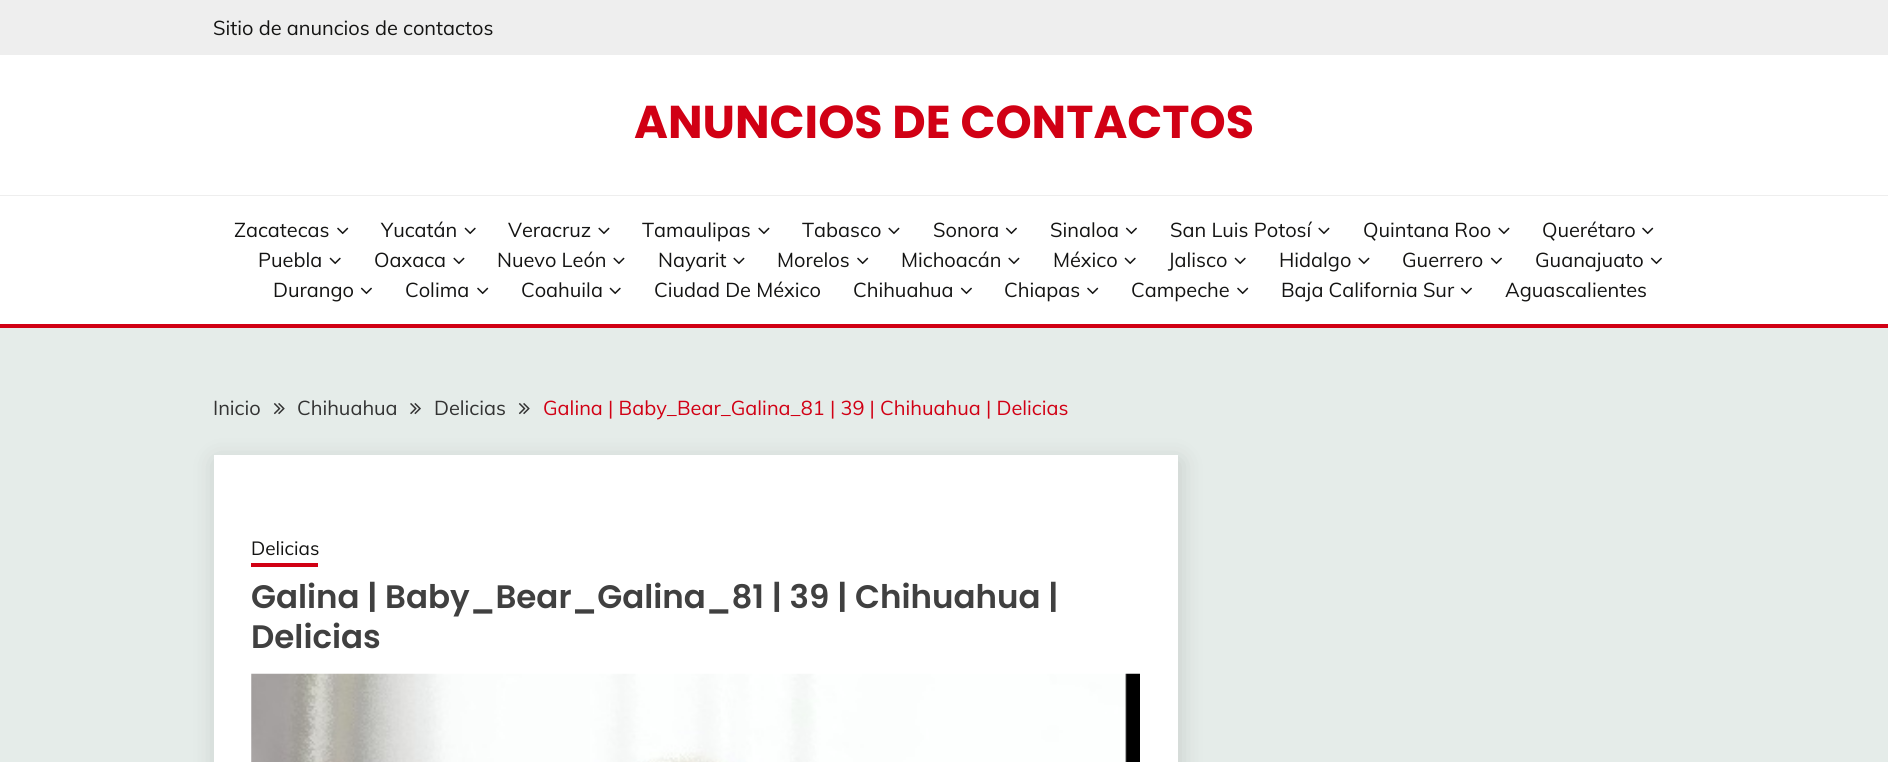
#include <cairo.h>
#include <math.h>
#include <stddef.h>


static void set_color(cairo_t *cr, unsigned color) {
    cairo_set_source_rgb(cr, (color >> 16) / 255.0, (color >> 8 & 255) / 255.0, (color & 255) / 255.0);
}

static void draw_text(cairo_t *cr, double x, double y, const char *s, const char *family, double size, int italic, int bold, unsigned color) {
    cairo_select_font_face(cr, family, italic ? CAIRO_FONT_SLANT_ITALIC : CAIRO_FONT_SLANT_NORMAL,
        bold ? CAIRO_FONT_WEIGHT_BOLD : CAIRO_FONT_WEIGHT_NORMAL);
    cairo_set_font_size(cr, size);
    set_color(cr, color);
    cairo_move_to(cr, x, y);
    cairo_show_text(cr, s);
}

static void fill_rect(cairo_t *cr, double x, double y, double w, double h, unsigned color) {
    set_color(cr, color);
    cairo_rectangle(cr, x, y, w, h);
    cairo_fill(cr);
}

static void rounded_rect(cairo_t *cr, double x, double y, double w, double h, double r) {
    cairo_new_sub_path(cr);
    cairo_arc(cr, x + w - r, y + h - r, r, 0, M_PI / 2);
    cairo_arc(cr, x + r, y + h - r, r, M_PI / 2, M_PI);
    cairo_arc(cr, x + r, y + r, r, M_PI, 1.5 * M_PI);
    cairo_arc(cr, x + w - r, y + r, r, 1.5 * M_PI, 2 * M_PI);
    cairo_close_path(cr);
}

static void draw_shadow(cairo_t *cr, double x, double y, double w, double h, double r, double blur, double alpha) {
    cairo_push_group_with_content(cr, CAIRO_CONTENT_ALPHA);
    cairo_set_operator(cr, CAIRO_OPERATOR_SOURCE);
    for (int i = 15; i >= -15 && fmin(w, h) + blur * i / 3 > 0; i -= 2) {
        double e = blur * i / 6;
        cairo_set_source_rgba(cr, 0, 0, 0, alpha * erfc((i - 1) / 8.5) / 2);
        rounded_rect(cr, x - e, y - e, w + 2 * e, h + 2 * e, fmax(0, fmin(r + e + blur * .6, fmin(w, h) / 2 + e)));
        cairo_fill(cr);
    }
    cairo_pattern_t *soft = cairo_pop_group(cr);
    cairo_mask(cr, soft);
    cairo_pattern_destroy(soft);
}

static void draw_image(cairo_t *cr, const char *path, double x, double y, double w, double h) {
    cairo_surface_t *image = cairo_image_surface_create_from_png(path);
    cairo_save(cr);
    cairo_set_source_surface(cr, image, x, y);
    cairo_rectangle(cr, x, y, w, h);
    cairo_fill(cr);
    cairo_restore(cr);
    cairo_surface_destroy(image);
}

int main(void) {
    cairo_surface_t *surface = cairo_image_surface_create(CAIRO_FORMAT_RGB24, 1888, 762);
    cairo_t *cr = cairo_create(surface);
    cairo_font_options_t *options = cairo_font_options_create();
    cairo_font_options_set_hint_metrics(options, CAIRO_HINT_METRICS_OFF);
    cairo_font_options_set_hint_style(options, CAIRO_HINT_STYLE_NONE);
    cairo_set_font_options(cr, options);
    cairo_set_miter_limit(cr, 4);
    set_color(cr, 0xE5ECE9);
    cairo_paint(cr);
    fill_rect(cr, 0, 55, 1888, 269, 0xFFFFFF);
    fill_rect(cr, 0, 0, 1888, 55, 0xEEEEEE);
    draw_text(cr, 213, 35, "Sitio de anuncios de contactos", "Muli", 20, 0, 0, 0x141413);
    fill_rect(cr, 0, 195, 1888, 1, 0xEEEEEE);
    draw_text(cr, 634, 138, "ANUNCIOS DE CONTACTOS", "Poppins", 46, 0, 1, 0xD10014);
    fill_rect(cr, 0, 324, 1888, 4, 0xD10014);
    draw_text(cr, 234, 237, "Zacatecas", "Muli", 20, 0, 0, 0x141413);
    draw_image(cr, "assets/img1.png", 337, 227, 12, 8);
    draw_text(cr, 381, 237, "Yucatán", "Muli", 20, 0, 0, 0x141413);
    draw_image(cr, "assets/img2.png", 464, 227, 12, 8);
    draw_text(cr, 508, 237, "Veracruz", "Muli", 20, 0, 0, 0x141413);
    draw_image(cr, "assets/img3.png", 598, 227, 12, 8);
    draw_text(cr, 642, 237, "Tamaulipas", "Muli", 20, 0, 0, 0x141413);
    draw_image(cr, "assets/img3.png", 758, 227, 12, 8);
    draw_text(cr, 802, 237, "Tabasco", "Muli", 20, 0, 0, 0x141413);
    draw_image(cr, "assets/img3.png", 888, 227, 12, 8);
    draw_text(cr, 933, 237, "Sonora", "Muli", 20, 0, 0, 0x141413);
    draw_image(cr, "assets/img4.png", 1005, 227, 12, 8);
    draw_text(cr, 1050, 237, "Sinaloa", "Muli", 20, 0, 0, 0x141413);
    draw_image(cr, "assets/img4.png", 1125, 227, 12, 8);
    draw_text(cr, 1170, 237, "San Luis Potosí", "Muli", 20, 0, 0, 0x141413);
    draw_image(cr, "assets/img3.png", 1318, 227, 12, 8);
    draw_text(cr, 1363, 237, "Quintana Roo", "Muli", 20, 0, 0, 0x141413);
    draw_image(cr, "assets/img3.png", 1498, 227, 12, 8);
    draw_text(cr, 1542, 237, "Querétaro", "Muli", 20, 0, 0, 0x141413);
    draw_image(cr, "assets/img1.png", 1642, 227, 12, 8);
    draw_text(cr, 258, 267, "Puebla", "Muli", 20, 0, 0, 0x141413);
    draw_image(cr, "assets/img2.png", 329, 257, 12, 8);
    draw_text(cr, 374, 267, "Oaxaca", "Muli", 20, 0, 0, 0x141413);
    draw_image(cr, "assets/img3.png", 453, 257, 12, 8);
    draw_text(cr, 497, 267, "Nuevo León", "Muli", 20, 0, 0, 0x141413);
    draw_image(cr, "assets/img3.png", 613, 257, 12, 8);
    draw_text(cr, 658, 267, "Nayarit", "Muli", 20, 0, 0, 0x141413);
    draw_image(cr, "assets/img3.png", 733, 257, 12, 8);
    draw_text(cr, 777, 267, "Morelos", "Muli", 20, 0, 0, 0x141413);
    draw_image(cr, "assets/img1.png", 857, 257, 12, 8);
    draw_text(cr, 901, 267, "Michoacán", "Muli", 20, 0, 0, 0x141413);
    draw_image(cr, "assets/img3.png", 1008, 257, 12, 8);
    draw_text(cr, 1053, 267, "México", "Muli", 20, 0, 0, 0x141413);
    draw_image(cr, "assets/img2.png", 1124, 257, 12, 8);
    draw_text(cr, 1168, 267, "Jalisco", "Muli", 20, 0, 0, 0x141413);
    draw_image(cr, "assets/img2.png", 1234, 257, 12, 8);
    draw_text(cr, 1279, 267, "Hidalgo", "Muli", 20, 0, 0, 0x141413);
    draw_image(cr, "assets/img3.png", 1358, 257, 12, 8);
    draw_text(cr, 1402, 267, "Guerrero", "Muli", 20, 0, 0, 0x141413);
    draw_image(cr, "assets/img4.png", 1490, 257, 12, 8);
    draw_text(cr, 1535, 267, "Guanajuato", "Muli", 20, 0, 0, 0x141413);
    draw_image(cr, "assets/img4.png", 1650, 257, 12, 8);
    draw_text(cr, 273, 297, "Durango", "Muli", 20, 0, 0, 0x141413);
    draw_image(cr, "assets/img4.png", 360, 287, 12, 8);
    draw_text(cr, 405, 297, "Colima", "Muli", 20, 0, 0, 0x141413);
    draw_image(cr, "assets/img1.png", 477, 287, 12, 8);
    draw_text(cr, 521, 297, "Coahuila", "Muli", 20, 0, 0, 0x141413);
    draw_image(cr, "assets/img2.png", 609, 287, 12, 8);
    draw_text(cr, 654, 297, "Ciudad De México", "Muli", 20, 0, 0, 0x141413);
    draw_text(cr, 853, 297, "Chihuahua", "Muli", 20, 0, 0, 0x141413);
    draw_image(cr, "assets/img4.png", 960, 287, 12, 8);
    draw_text(cr, 1004, 297, "Chiapas", "Muli", 20, 0, 0, 0x141413);
    draw_image(cr, "assets/img1.png", 1087, 287, 12, 8);
    draw_text(cr, 1131, 297, "Campeche", "Muli", 20, 0, 0, 0x141413);
    draw_image(cr, "assets/img1.png", 1237, 287, 12, 8);
    draw_text(cr, 1281, 297, "Baja California Sur", "Muli", 20, 0, 0, 0x141413);
    draw_image(cr, "assets/img4.png", 1460, 287, 12, 8);
    draw_text(cr, 1505, 297, "Aguascalientes", "Muli", 20, 0, 0, 0x141413);
    draw_text(cr, 213, 415, "Inicio", "Muli", 20, 0, 0, 0x333333);
    draw_image(cr, "assets/img5.png", 273, 403, 12, 12);
    draw_text(cr, 297, 415, "Chihuahua", "Muli", 20, 0, 0, 0x333333);
    draw_image(cr, "assets/img6.png", 410, 403, 11, 12);
    draw_text(cr, 434, 415, "Delicias", "Muli", 20, 0, 0, 0x333333);
    draw_image(cr, "assets/img5.png", 518, 403, 12, 12);
    draw_text(cr, 543, 415, "Galina | Baby_Bear_Galina_81 | 39 | Chihuahua | Delicias", "Muli", 20, 0, 0, 0xD10014);
    set_color(cr, 0x000000);
    draw_shadow(cr, 216, 461, 964, 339, 0, 12.5, 0.14);
    fill_rect(cr, 214, 455, 964, 307, 0xFFFFFF);
    draw_text(cr, 251, 555, "Delicias", "Muli", 19, 0, 0, 0x141413);
    fill_rect(cr, 251, 563, 67, 4, 0xD10014);
    draw_text(cr, 251, 608, "Galina | Baby_Bear_Galina_81 | 39 | Chihuahua |", "Poppins SemiBold", 32.5, 0, 0, 0x404040);
    draw_text(cr, 251, 648, "Delicias", "Poppins SemiBold", 32.5, 0, 0, 0x404040);
    draw_image(cr, "assets/img7.png", 251, 673, 889, 89);
    cairo_surface_write_to_png(surface, "output.png");
    cairo_font_options_destroy(options);
    cairo_destroy(cr);
    cairo_surface_destroy(surface);
    return 0;
}
